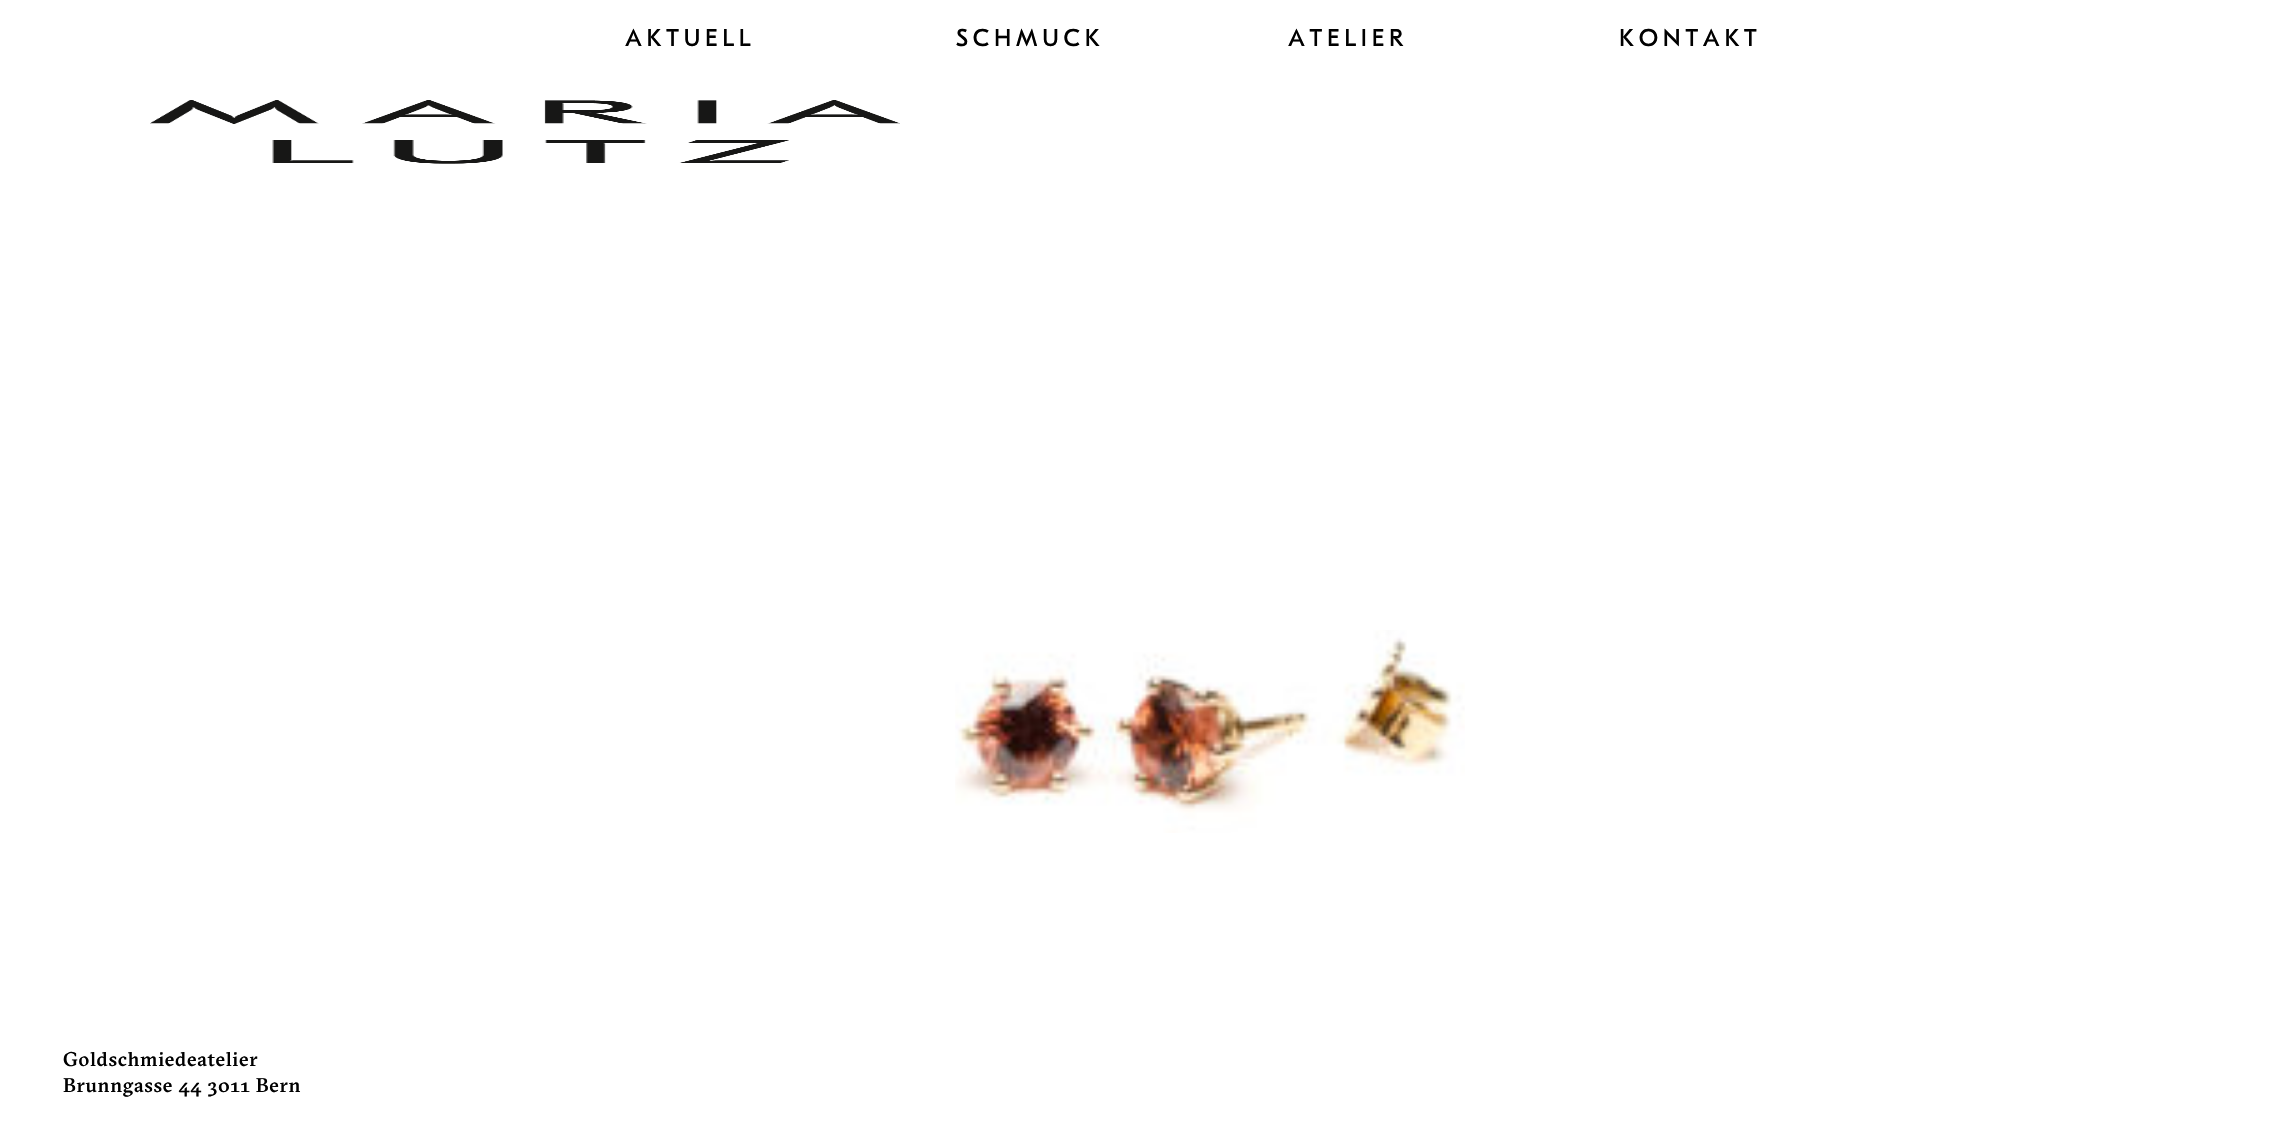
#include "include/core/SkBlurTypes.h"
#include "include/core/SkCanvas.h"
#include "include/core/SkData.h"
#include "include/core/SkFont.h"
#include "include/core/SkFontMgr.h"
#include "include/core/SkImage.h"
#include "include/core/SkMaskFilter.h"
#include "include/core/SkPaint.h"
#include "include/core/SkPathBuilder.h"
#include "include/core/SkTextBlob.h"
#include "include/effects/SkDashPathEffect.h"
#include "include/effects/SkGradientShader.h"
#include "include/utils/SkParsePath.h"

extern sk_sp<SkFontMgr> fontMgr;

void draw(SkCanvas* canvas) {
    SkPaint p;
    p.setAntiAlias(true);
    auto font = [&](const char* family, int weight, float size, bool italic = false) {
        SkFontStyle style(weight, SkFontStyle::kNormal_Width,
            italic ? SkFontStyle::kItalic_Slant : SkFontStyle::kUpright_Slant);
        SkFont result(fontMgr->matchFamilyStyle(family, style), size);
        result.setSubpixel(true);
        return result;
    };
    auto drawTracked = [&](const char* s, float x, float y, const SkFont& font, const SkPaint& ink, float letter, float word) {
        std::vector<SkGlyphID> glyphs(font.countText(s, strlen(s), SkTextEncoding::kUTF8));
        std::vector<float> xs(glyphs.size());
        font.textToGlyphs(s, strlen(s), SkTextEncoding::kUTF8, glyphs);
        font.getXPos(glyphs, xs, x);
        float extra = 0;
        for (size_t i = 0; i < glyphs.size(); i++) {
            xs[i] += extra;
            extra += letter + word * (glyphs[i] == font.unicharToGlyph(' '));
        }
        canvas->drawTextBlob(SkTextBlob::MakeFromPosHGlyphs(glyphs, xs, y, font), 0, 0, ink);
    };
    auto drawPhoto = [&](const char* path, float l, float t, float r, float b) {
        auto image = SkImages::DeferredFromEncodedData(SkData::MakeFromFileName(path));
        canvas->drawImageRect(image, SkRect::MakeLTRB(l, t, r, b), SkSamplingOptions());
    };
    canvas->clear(0xFFFFFFFF);
    auto font1 = font("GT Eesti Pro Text", 400, 24.25f);
    p.setColor(0xFF000000);
    {
        const struct { const char* s; float x, y; } items[] = {
            {"AKTUELL", 625, 46},
            {"SCHMUCK", 956, 46},
            {"ATELIER", 1288, 46},
            {"KONTAKT", 1619, 46},
        };
        for (auto [s, x, y] : items) {
            drawTracked(s, x, y, font1, p, 4.75f, 0);
        }
    }
    drawPhoto("media/1.png", 955, 630, 1465, 833);
    drawPhoto("media/2.png", 150, 100, 900, 164);
    auto font2 = font("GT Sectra", 500, 19.75f);
    drawTracked("Goldschmiedeatelier", 63, 1066, font2, p, 0.7f, 0);
    drawTracked("Brunngasse 44 3011 Bern", 63, 1092, font2, p, 0.7f, 0);
}
